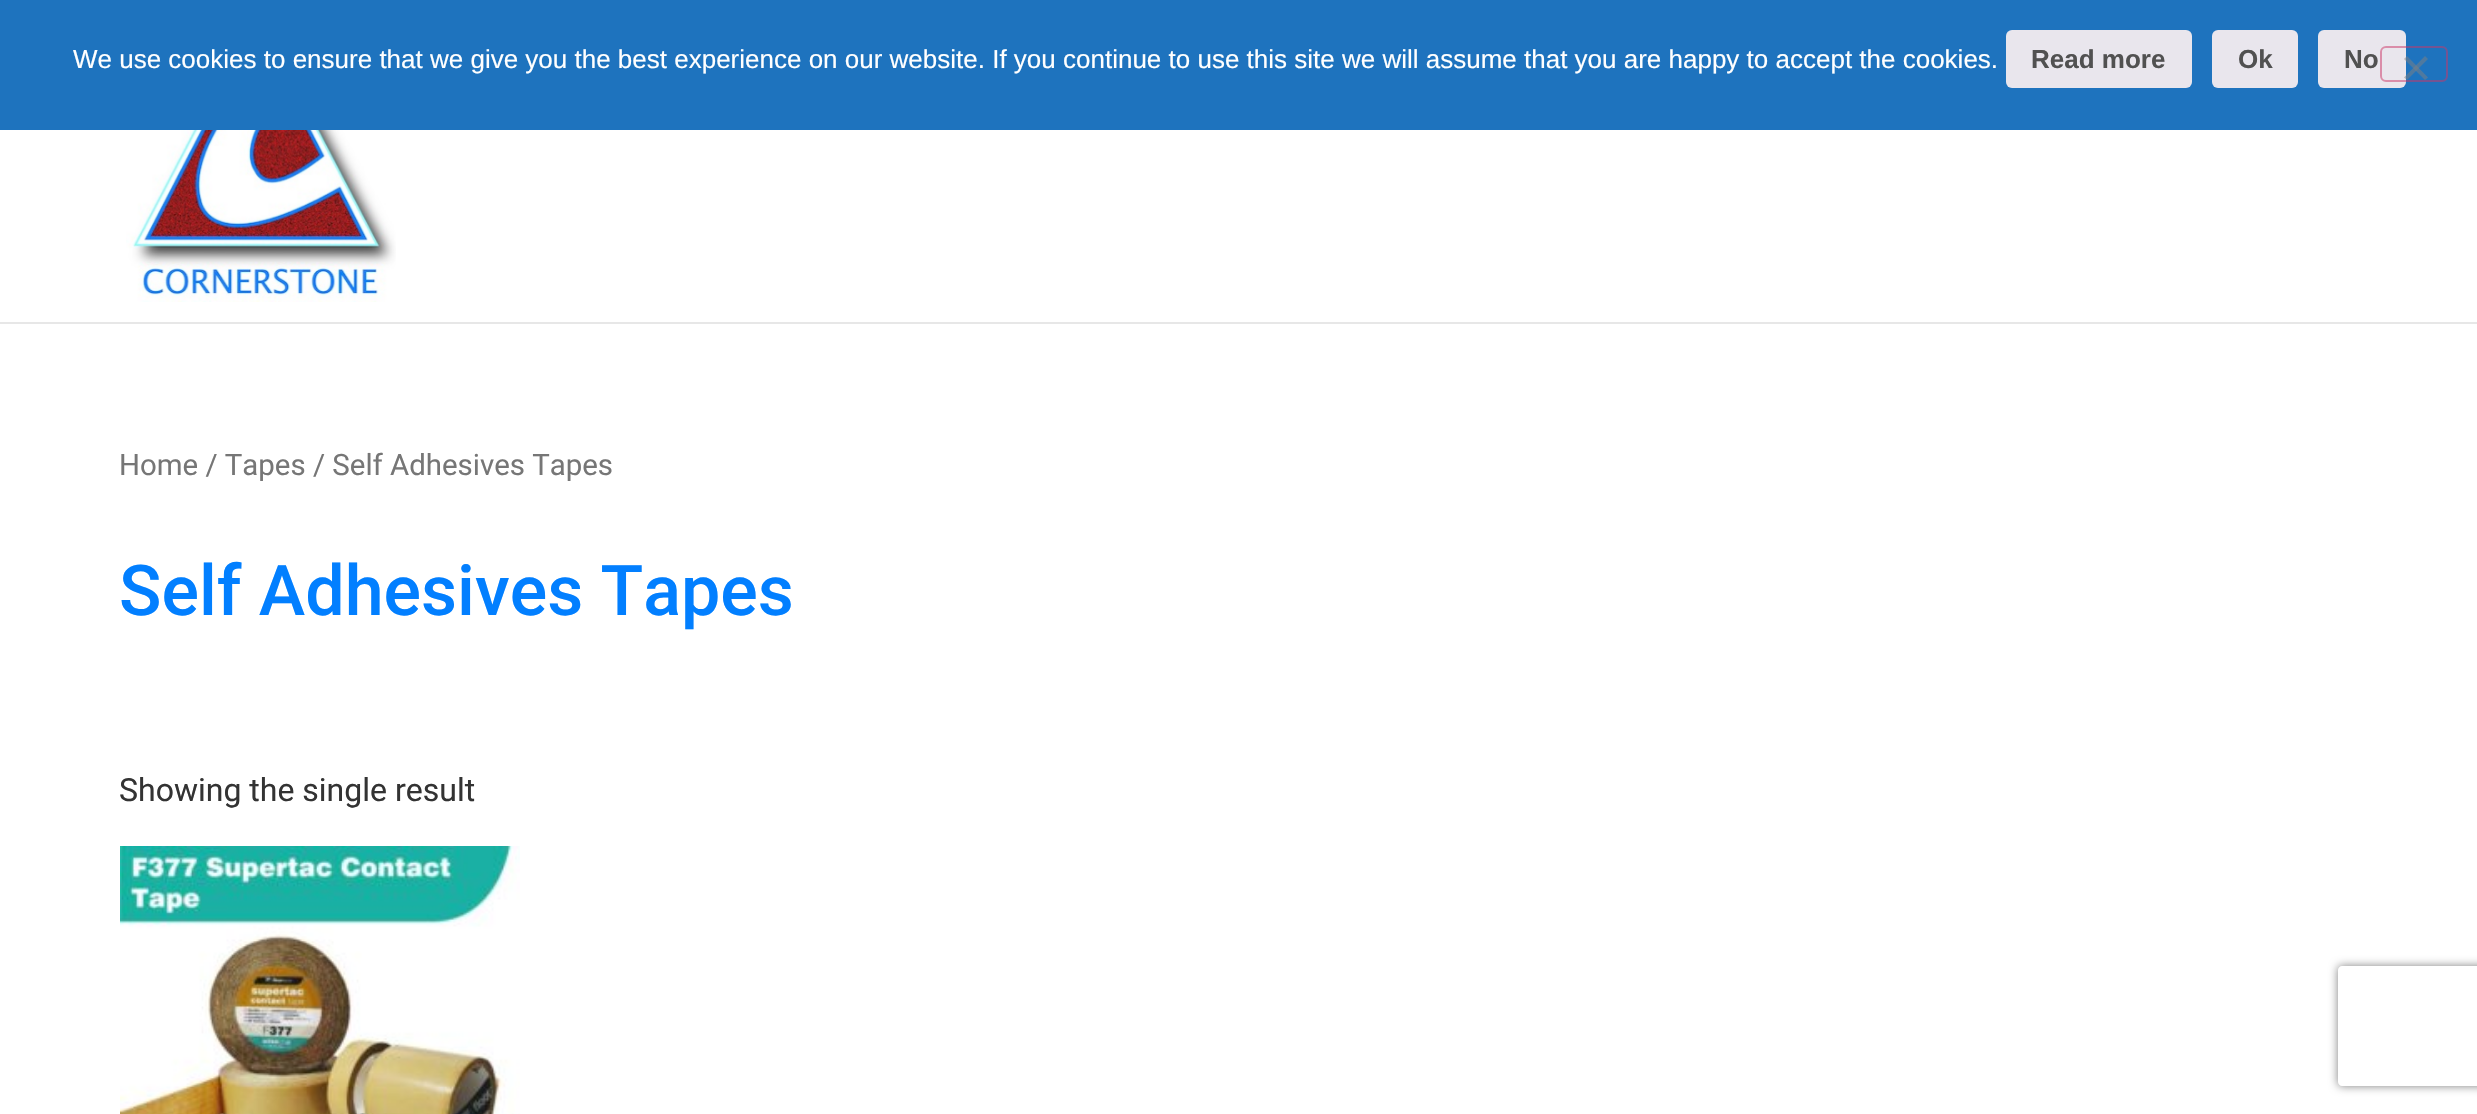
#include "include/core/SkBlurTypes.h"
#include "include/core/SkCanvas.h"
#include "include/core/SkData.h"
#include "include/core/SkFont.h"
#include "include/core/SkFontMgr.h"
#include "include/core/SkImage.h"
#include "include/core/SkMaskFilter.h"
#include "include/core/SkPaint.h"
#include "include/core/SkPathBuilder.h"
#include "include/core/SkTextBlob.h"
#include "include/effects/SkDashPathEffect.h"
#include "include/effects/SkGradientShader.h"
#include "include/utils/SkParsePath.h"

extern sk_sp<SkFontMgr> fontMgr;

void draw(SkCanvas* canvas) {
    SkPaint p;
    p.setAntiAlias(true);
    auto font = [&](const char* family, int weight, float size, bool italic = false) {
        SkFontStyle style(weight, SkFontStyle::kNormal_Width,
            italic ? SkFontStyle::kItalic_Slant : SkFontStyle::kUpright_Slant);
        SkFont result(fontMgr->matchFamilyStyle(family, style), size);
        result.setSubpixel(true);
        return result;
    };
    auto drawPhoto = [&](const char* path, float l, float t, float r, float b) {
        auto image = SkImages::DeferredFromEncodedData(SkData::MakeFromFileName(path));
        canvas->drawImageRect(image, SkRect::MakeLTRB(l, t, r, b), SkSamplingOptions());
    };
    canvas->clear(0xFFFFFFFF);
    p.setColor(0xFF1E73BE);
    canvas->drawRect(SkRect::MakeLTRB(0, 0, 2477, 130), p);
    auto font1 = font("Liberation Sans", 400, 26);
    p.setColor(0xFFFFFFFF);
    canvas->drawString("We use cookies to ensure that we give you the best experience on our website. If you continue to use this site we will assume that you are happy to accept the cookies.", 73, 68, font1, p);
    p.setColor(0xFFE9E6ED);
    canvas->drawRoundRect(SkRect::MakeLTRB(2006, 30, 2192, 88), 6, 6, p);
    auto font2 = font("Liberation Sans", 700, 26);
    p.setColor(0xFF515151);
    canvas->drawString("Read more", 2031, 68, font2, p);
    p.setColor(0xFFE9E6ED);
    canvas->drawRoundRect(SkRect::MakeLTRB(2212, 30, 2298, 88), 6, 6, p);
    p.setColor(0xFF515151);
    canvas->drawString("Ok", 2238, 68, font2, p);
    p.setColor(0xFFE9E6ED);
    canvas->drawRoundRect(SkRect::MakeLTRB(2318, 30, 2406, 88), 6, 6, p);
    p.setColor(0xFF515151);
    canvas->drawString("No", 2344, 68, font2, p);
    p.setStyle(SkPaint::kStroke_Style);
    p.setStrokeWidth(2);
    p.setColor(0x80CC3366);
    canvas->drawRoundRect(SkRect::MakeLTRB(2381, 47, 2447, 81), 5, 5, p);
    p.setStyle(SkPaint::kFill_Style);
    p.setColor(0x80808080);
    canvas->drawPath(SkPathBuilder().moveTo(2425, 56).lineTo(2428, 59).lineTo(2407, 80).lineTo(2404, 77.5f).close().detach(), p);
    canvas->drawPath(SkPathBuilder().moveTo(2404, 59).lineTo(2407, 56).lineTo(2428, 77.5f).lineTo(2425, 80).close().detach(), p);
    p.setColor(0xFFE7E7E7);
    canvas->drawRect(SkRect::MakeLTRB(0, 322, 2477, 324), p);
    drawPhoto("media/1.png", 126, 130, 396, 302);
    auto font3 = font("Roboto", 400, 29.4f);
    p.setColor(0xFF767676);
    canvas->drawString("Home / Tapes / Self Adhesives Tapes", 119, 475, font3, p);
    auto font4 = font("Roboto", 500, 70);
    p.setColor(0xFF027FFF);
    canvas->drawString("Self Adhesives Tapes", 119, 615, font4, p);
    auto font5 = font("Roboto", 400, 32);
    p.setColor(0xFF333333);
    canvas->drawString("Showing the single result", 119, 801, font5, p);
    drawPhoto("media/2.png", 120, 846, 520, 1114);
    canvas->save();
    canvas->clipPath(SkPathBuilder(SkPathFillType::kEvenOdd).moveTo(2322, 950).lineTo(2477, 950).lineTo(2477, 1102).lineTo(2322, 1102).close().moveTo(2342, 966).lineTo(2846, 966).cubicTo(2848, 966, 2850, 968, 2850, 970).lineTo(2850, 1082).cubicTo(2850, 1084, 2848, 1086, 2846, 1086).lineTo(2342, 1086).cubicTo(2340, 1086, 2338, 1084, 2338, 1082).lineTo(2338, 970).cubicTo(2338, 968, 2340, 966, 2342, 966).close().detach(), true);
    p.setColor(0xFF808080);
    p.setMaskFilter(SkMaskFilter::MakeBlur(kNormal_SkBlurStyle, 5));
    canvas->drawRoundRect(SkRect::MakeLTRB(2338, 966, 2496, 1086), 4, 4, p);
    p.setMaskFilter(nullptr);
    canvas->restore();
}
